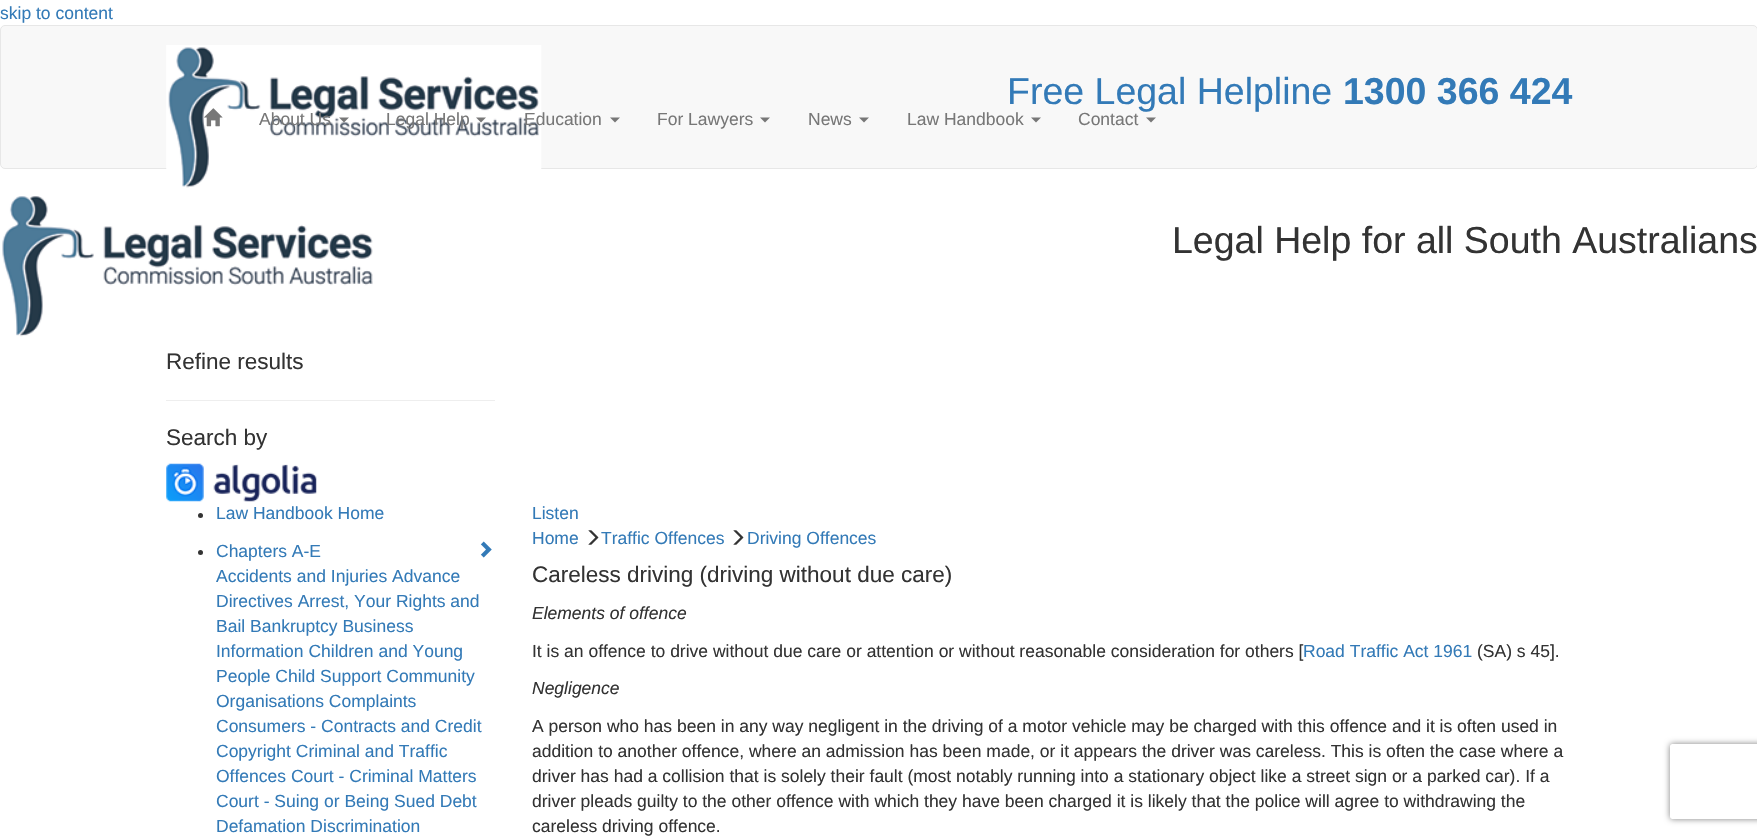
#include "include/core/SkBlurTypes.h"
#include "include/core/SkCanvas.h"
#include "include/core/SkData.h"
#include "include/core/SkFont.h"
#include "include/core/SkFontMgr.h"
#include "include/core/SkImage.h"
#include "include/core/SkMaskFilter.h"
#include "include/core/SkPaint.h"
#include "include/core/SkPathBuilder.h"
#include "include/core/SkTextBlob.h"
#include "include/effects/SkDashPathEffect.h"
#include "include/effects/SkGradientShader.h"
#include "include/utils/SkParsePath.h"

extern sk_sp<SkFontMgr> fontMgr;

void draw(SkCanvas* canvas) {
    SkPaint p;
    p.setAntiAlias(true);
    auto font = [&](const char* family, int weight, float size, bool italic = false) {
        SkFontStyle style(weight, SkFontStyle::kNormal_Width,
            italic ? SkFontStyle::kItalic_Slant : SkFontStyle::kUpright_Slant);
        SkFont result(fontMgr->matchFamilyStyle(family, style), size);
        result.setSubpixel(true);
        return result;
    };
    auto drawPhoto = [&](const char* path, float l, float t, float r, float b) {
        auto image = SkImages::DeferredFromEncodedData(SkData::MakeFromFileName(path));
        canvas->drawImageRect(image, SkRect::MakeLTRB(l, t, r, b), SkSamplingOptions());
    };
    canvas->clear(0xFFFFFFFF);
    auto font1 = font("Liberation Sans", 400, 17.5f);
    p.setColor(0xFF337AB7);
    canvas->drawString("skip to content", 0, 19, font1, p);
    p.setColor(0xFFF8F8F8);
    canvas->drawRoundRect(SkRect::MakeLTRB(0.5f, 25.5f, 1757.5f, 168.5f), 4.5f, 4.5f, p);
    p.setStyle(SkPaint::kStroke_Style);
    p.setStrokeWidth(1);
    p.setColor(0xFFE7E7E7);
    canvas->drawRoundRect(SkRect::MakeLTRB(0.5f, 25.5f, 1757.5f, 168.5f), 4.5f, 4.5f, p);
    drawPhoto("media/1.png", 166, 45, 542, 188);
    auto font2 = font("Liberation Sans", 400, 37.5f);
    p.setStyle(SkPaint::kFill_Style);
    p.setColor(0xFF337AB7);
    canvas->drawString("Free Legal Helpline", 1007, 104, font2, p);
    auto font3 = font("Liberation Sans", 700, 37.5f);
    canvas->drawString("1300 366 424", 1343, 104, font3, p);
    drawPhoto("media/2.png", 204, 108, 223, 127);
    p.setColor(0xFF777777);
    canvas->drawString("About Us", 259, 125, font1, p);
    canvas->drawPath(SkPathBuilder().moveTo(339, 117.5f).lineTo(349, 117.5f).lineTo(344, 122.5f).close().detach(), p);
    canvas->drawString("Legal Help", 386, 125, font1, p);
    canvas->drawPath(SkPathBuilder().moveTo(476, 117.5f).lineTo(486, 117.5f).lineTo(481, 122.5f).close().detach(), p);
    canvas->drawString("Education", 524, 125, font1, p);
    canvas->drawPath(SkPathBuilder().moveTo(610, 117.5f).lineTo(620, 117.5f).lineTo(615, 122.5f).close().detach(), p);
    canvas->drawString("For Lawyers", 657, 125, font1, p);
    canvas->drawPath(SkPathBuilder().moveTo(760, 117.5f).lineTo(770, 117.5f).lineTo(765, 122.5f).close().detach(), p);
    canvas->drawString("News", 808, 125, font1, p);
    canvas->drawPath(SkPathBuilder().moveTo(859, 117.5f).lineTo(869, 117.5f).lineTo(864, 122.5f).close().detach(), p);
    canvas->drawString("Law Handbook", 907, 125, font1, p);
    canvas->drawPath(SkPathBuilder().moveTo(1031, 117.5f).lineTo(1041, 117.5f).lineTo(1036, 122.5f).close().detach(), p);
    canvas->drawString("Contact", 1078, 125, font1, p);
    canvas->drawPath(SkPathBuilder().moveTo(1146, 117.5f).lineTo(1156, 117.5f).lineTo(1151, 122.5f).close().detach(), p);
    drawPhoto("media/3.png", 2, 196, 373, 337);
    p.setColor(0xFF333333);
    canvas->drawString("Legal Help for all South Australians", 1172, 253, font2, p);
    auto font4 = font("Liberation Sans", 400, 22.5f);
    canvas->drawString("Refine results", 166, 369, font4, p);
    p.setColor(0xFFEEEEEE);
    canvas->drawRect(SkRect::MakeLTRB(166, 400, 495, 401), p);
    p.setColor(0xFF333333);
    canvas->drawString("Search by", 166, 445, font4, p);
    drawPhoto("media/4.png", 166, 463, 317, 502);
    canvas->drawCircle(200.5f, 515.5f, 2.5f, p);
    p.setColor(0xFF337AB7);
    canvas->drawString("Law Handbook Home", 216, 519, font1, p);
    p.setColor(0xFF333333);
    canvas->drawCircle(200.5f, 552.5f, 2.5f, p);
    p.setColor(0xFF337AB7);
    canvas->drawString("Chapters A-E", 216, 557, font1, p);
    drawPhoto("media/5.png", 480, 541, 492, 558);
    {
        const struct { const char* s; float x, y; } items[] = {
            {"Accidents and Injuries Advance", 216, 582},
            {"Directives Arrest, Your Rights and", 216, 607},
            {"Bail Bankruptcy Business", 216, 632},
            {"Information Children and Young", 216, 657},
            {"People Child Support Community", 216, 682},
            {"Organisations Complaints", 216, 707},
            {"Consumers - Contracts and Credit", 216, 732},
            {"Copyright Criminal and Traffic", 216, 757},
            {"Offences Court - Criminal Matters", 216, 782},
            {"Court - Suing or Being Sued Debt", 216, 807},
            {"Defamation Discrimination", 216, 832},
            {"Listen", 532, 519},
            {"Home", 532, 544},
        };
        for (auto [s, x, y] : items) {
            canvas->drawString(s, x, y, font1, p);
        }
    }
    drawPhoto("media/6.png", 588, 530, 599, 545);
    canvas->drawString("Traffic Offences", 601, 544, font1, p);
    drawPhoto("media/6.png", 733, 530, 744, 545);
    canvas->drawString("Driving Offences", 747, 544, font1, p);
    p.setColor(0xFF333333);
    canvas->drawString("Careless driving (driving without due care)", 532, 582, font4, p);
    auto font5 = font("Liberation Sans", 400, 17.5f, true);
    canvas->drawString("Elements of offence", 532, 619, font5, p);
    canvas->drawString("It is an offence to drive without due care or attention or without reasonable consideration for others [", 532, 657, font1, p);
    p.setColor(0xFF337AB7);
    canvas->drawString("Road Traffic Act 1961", 1303, 657, font1, p);
    p.setColor(0xFF333333);
    canvas->drawString("(SA) s 45].", 1477, 657, font1, p);
    canvas->drawString("Negligence", 532, 694, font5, p);
    {
        const struct { const char* s; float x, y; } items[] = {
            {"A person who has been in any way negligent in the driving of a motor vehicle may be charged with this offence and it is often used in", 532, 732},
            {"addition to another offence, where an admission has been made, or it appears the driver was careless. This is often the case where a", 532, 757},
            {"driver has had a collision that is solely their fault (most notably running into a stationary object like a street sign or a parked car). If a", 532, 782},
            {"driver pleads guilty to the other offence with which they have been charged it is likely that the police will agree to withdrawing the", 532, 807},
            {"careless driving offence.", 532, 832},
        };
        for (auto [s, x, y] : items) {
            canvas->drawString(s, x, y, font1, p);
        }
    }
    canvas->save();
    canvas->clipPath(SkPathBuilder(SkPathFillType::kEvenOdd).moveTo(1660, 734).lineTo(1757, 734).lineTo(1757, 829).lineTo(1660, 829).close().moveTo(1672.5f, 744).lineTo(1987.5f, 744).cubicTo(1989, 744, 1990, 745, 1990, 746.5f).lineTo(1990, 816.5f).cubicTo(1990, 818, 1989, 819, 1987.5f, 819).lineTo(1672.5f, 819).cubicTo(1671, 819, 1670, 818, 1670, 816.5f).lineTo(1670, 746.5f).cubicTo(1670, 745, 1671, 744, 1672.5f, 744).close().detach(), true);
    p.setColor(0xFF808080);
    p.setMaskFilter(SkMaskFilter::MakeBlur(kNormal_SkBlurStyle, 3));
    canvas->drawRoundRect(SkRect::MakeLTRB(1670, 744, 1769, 819), 2.5f, 2.5f, p);
    p.setMaskFilter(nullptr);
    canvas->restore();
}
